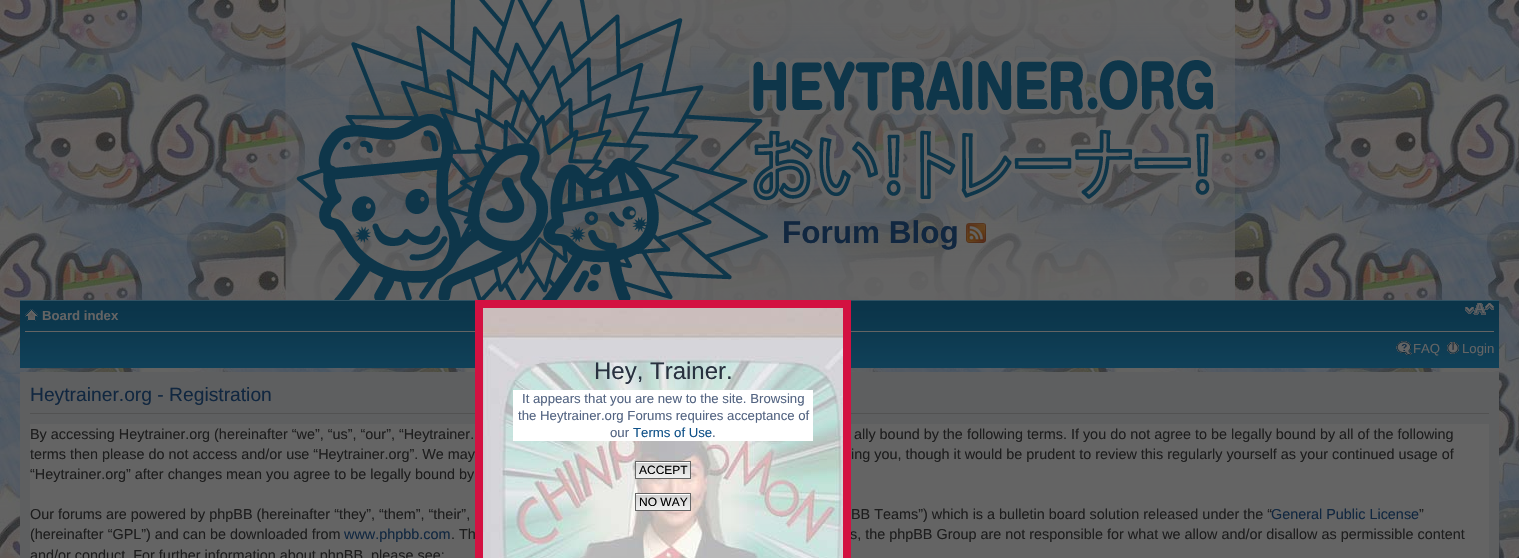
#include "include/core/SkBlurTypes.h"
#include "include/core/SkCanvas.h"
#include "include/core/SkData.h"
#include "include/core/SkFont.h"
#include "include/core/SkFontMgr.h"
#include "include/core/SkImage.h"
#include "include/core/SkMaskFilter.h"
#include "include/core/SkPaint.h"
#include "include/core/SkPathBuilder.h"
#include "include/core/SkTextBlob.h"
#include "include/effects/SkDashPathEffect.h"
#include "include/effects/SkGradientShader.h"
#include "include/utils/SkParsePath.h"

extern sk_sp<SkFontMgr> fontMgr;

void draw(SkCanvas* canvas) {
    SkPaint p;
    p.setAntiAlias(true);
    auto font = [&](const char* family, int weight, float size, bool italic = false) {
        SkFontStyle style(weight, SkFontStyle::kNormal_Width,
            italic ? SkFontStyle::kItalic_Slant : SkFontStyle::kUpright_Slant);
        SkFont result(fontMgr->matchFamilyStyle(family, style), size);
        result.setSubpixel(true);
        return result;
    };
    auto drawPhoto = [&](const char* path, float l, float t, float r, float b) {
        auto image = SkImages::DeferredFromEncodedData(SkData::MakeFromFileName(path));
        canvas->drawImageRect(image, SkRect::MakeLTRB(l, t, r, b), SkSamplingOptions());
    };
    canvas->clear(0xFFFFFFFF);
    drawPhoto("media/1.png", 0, 0, 1519, 558);
    drawPhoto("media/2.png", 285, 0, 1235, 300);
    auto font1 = font("Liberation Sans", 700, 31.5f);
    p.setColor(0xFF112740);
    canvas->drawString("Forum Blog", 782, 243, font1, p);
    drawPhoto("media/3.png", 966, 223, 986, 243);
    drawPhoto("media/4.png", 20, 300, 1499, 368);
    p.setColor(0xFF646464);
    canvas->drawRect(SkRect::MakeLTRB(25, 331, 1494, 332), p);
    drawPhoto("media/5.png", 25, 309, 38, 321);
    auto font2 = font("Liberation Sans", 700, 13.2f);
    canvas->drawString("Board index", 42, 320, font2, p);
    drawPhoto("media/6.png", 1465, 303, 1494, 315);
    drawPhoto("media/7.png", 1396, 341, 1412, 355);
    auto font3 = font("Liberation Sans", 400, 13.2f);
    canvas->drawString("FAQ", 1413, 353, font3, p);
    drawPhoto("media/8.png", 1447, 342, 1459, 354);
    canvas->drawString("Login", 1462, 353, font3, p);
    p.setColor(0xFF5E5F60);
    canvas->drawRect(SkRect::MakeLTRB(20, 372, 1499, 558), p);
    p.setColor(0xFF525252);
    canvas->drawRect(SkRect::MakeLTRB(30, 413, 1489, 414), p);
    auto font4 = font("Liberation Sans", 400, 19.25f);
    p.setColor(0xFF112740);
    canvas->drawString("Heytrainer.org - Registration", 30, 401, font4, p);
    p.setColor(0xFF646464);
    canvas->drawRect(SkRect::MakeLTRB(30, 424, 1489, 558), p);
    auto font5 = font("Liberation Sans", 400, 14.4f);
    p.setColor(0xFF1D1D1D);
    {
        const struct { const char* s; float x, y; } items[] = {
            {"By accessing Heytrainer.org (hereinafter “we”, “us”, “our”, “Heytrainer.", 30, 439},
            {"ally bound by the following terms. If you do not agree to be legally bound by all of the following", 854, 439},
            {"terms then please do not access and/or use “Heytrainer.org”. We may", 30, 459},
            {"ing you, though it would be prudent to review this regularly yourself as your continued usage of", 851, 459},
            {"“Heytrainer.org” after changes mean you agree to be legally bound by", 30, 479},
            {"Our forums are powered by phpBB (hereinafter “they”, “them”, “their”,", 30, 519},
            {"BB Teams”) which is a bulletin board solution released under the “", 851, 519},
        };
        for (auto [s, x, y] : items) {
            canvas->drawString(s, x, y, font5, p);
        }
    }
    p.setColor(0xFF112740);
    canvas->drawString("General Public License", 1271, 519, font5, p);
    p.setColor(0xFF1D1D1D);
    canvas->drawString("”", 1419, 519, font5, p);
    canvas->drawString("(hereinafter “GPL”) and can be downloaded from", 30, 539, font5, p);
    p.setColor(0xFF112740);
    canvas->drawString("www.phpbb.com", 344, 539, font5, p);
    p.setColor(0xFF1D1D1D);
    {
        const struct { const char* s; float x, y; } items[] = {
            {". Th", 451, 539},
            {"s, the phpBB Group are not responsible for what we allow and/or disallow as permissible content", 850, 539},
            {"and/or conduct. For further information about phpBB, please see:", 30, 560},
        };
        for (auto [s, x, y] : items) {
            canvas->drawString(s, x, y, font5, p);
        }
    }
    drawPhoto("media/9.png", 483, 308, 843, 558);
    p.setStyle(SkPaint::kStroke_Style);
    p.setStrokeWidth(8);
    p.setColor(0xFFD31141);
    canvas->drawRect(SkRect::MakeLTRB(479, 304, 847, 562), p);
    auto font6 = font("Liberation Sans", 400, 24);
    p.setStyle(SkPaint::kFill_Style);
    p.setColor(0xFF28313F);
    canvas->drawString("Hey, Trainer.", 594, 379, font6, p);
    p.setColor(0xFFFFFFFF);
    canvas->drawRect(SkRect::MakeLTRB(513, 390, 813, 441), p);
    p.setColor(0xFF536482);
    {
        const struct { const char* s; float x, y; } items[] = {
            {"It appears that you are new to the site. Browsing", 522, 403},
            {"the Heytrainer.org Forums requires acceptance of", 518, 420},
            {"our", 610, 437},
        };
        for (auto [s, x, y] : items) {
            canvas->drawString(s, x, y, font3, p);
        }
    }
    p.setColor(0xFF105289);
    canvas->drawString("Terms of Use", 633, 437, font3, p);
    p.setColor(0xFF536482);
    canvas->drawString(".", 712, 437, font3, p);
    drawPhoto("media/10.png", 636, 462, 690, 478);
    p.setStyle(SkPaint::kStroke_Style);
    p.setStrokeWidth(1);
    p.setColor(0xFF666666);
    canvas->drawRect(SkRect::MakeLTRB(635.5f, 461.5f, 690.5f, 478.5f), p);
    auto font7 = font("Liberation Sans", 400, 12);
    p.setStyle(SkPaint::kFill_Style);
    p.setColor(0xFF000000);
    canvas->drawString("ACCEPT", 639, 474, font7, p);
    drawPhoto("media/10.png", 636, 494, 690, 510);
    p.setStyle(SkPaint::kStroke_Style);
    p.setColor(0xFF666666);
    canvas->drawRect(SkRect::MakeLTRB(635.5f, 493.5f, 690.5f, 510.5f), p);
    p.setStyle(SkPaint::kFill_Style);
    p.setColor(0xFF000000);
    canvas->drawString("NO WAY", 639, 506, font7, p);
}
